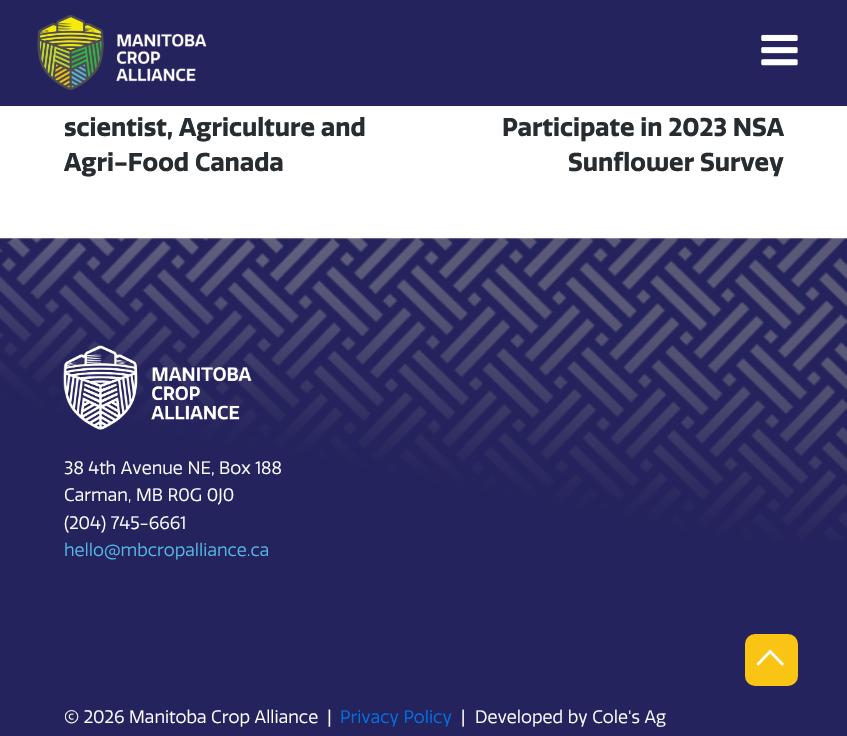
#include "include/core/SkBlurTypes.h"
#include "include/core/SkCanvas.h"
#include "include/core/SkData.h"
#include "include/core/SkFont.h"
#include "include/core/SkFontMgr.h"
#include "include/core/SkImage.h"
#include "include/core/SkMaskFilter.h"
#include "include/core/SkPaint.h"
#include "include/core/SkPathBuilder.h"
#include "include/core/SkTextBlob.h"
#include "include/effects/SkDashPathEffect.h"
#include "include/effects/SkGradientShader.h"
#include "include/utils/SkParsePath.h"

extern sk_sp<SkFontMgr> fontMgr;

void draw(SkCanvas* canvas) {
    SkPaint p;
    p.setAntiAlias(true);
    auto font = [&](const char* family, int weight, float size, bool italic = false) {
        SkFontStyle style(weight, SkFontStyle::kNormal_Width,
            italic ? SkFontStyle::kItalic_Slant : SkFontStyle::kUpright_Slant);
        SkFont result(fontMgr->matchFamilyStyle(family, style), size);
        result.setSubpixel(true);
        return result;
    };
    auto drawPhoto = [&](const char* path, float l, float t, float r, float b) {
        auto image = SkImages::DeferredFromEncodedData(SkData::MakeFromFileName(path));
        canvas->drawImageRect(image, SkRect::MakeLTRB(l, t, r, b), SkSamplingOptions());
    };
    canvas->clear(0xFFFFFFFF);
    p.setColor(0xFF25235D);
    canvas->drawRect(SkRect::MakeLTRB(0, 0, 847, 106), p);
    drawPhoto("media/1.png", 37, 15, 207, 90);
    drawPhoto("media/2.png", 761, 34, 798, 66);
    auto font1 = font("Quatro", 700, 25);
    p.setColor(0xFF272C30);
    {
        const struct { const char* s; float x, y; } items[] = {
            {"scientist, Agriculture and", 64, 136},
            {"Agri-Food Canada", 64, 171},
            {"Participate in 2023 NSA", 502, 136},
            {"Sunflower Survey", 568, 171},
        };
        for (auto [s, x, y] : items) {
            canvas->drawString(s, x, y, font1, p);
        }
    }
    p.setColor(0xFF25235D);
    canvas->drawRect(SkRect::MakeLTRB(0, 540, 847, 736), p);
    drawPhoto("media/3.png", 0, 238, 847, 540);
    drawPhoto("media/4.png", 63, 345, 252, 430);
    auto font2 = font("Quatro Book", 400, 17.5f);
    p.setColor(0xFFFFFFFF);
    {
        const struct { const char* s; float x, y; } items[] = {
            {"38 4th Avenue NE, Box 188", 64, 474},
            {"Carman, MB R0G 0J0", 64, 501},
            {"(204) 745-6661", 64, 529},
        };
        for (auto [s, x, y] : items) {
            canvas->drawString(s, x, y, font2, p);
        }
    }
    p.setColor(0xFF57B7E7);
    canvas->drawString("hello@mbcropalliance.ca", 64, 556, font2, p);
    p.setColor(0xFFFFFFFF);
    canvas->drawString("© 2026 Manitoba Crop Alliance  |", 64, 723, font2, p);
    p.setColor(0xFF0072E5);
    canvas->drawString("Privacy Policy", 340, 723, font2, p);
    p.setColor(0xFFFFFFFF);
    canvas->drawString("|", 461, 723, font2, p);
    canvas->drawString("Developed by Cole's Ag", 475, 723, font2, p);
    p.setColor(0xFFFAC414);
    canvas->drawRoundRect(SkRect::MakeLTRB(745, 634, 798, 686), 10, 10, p);
    drawPhoto("media/5.png", 756, 649, 785, 666);
}
